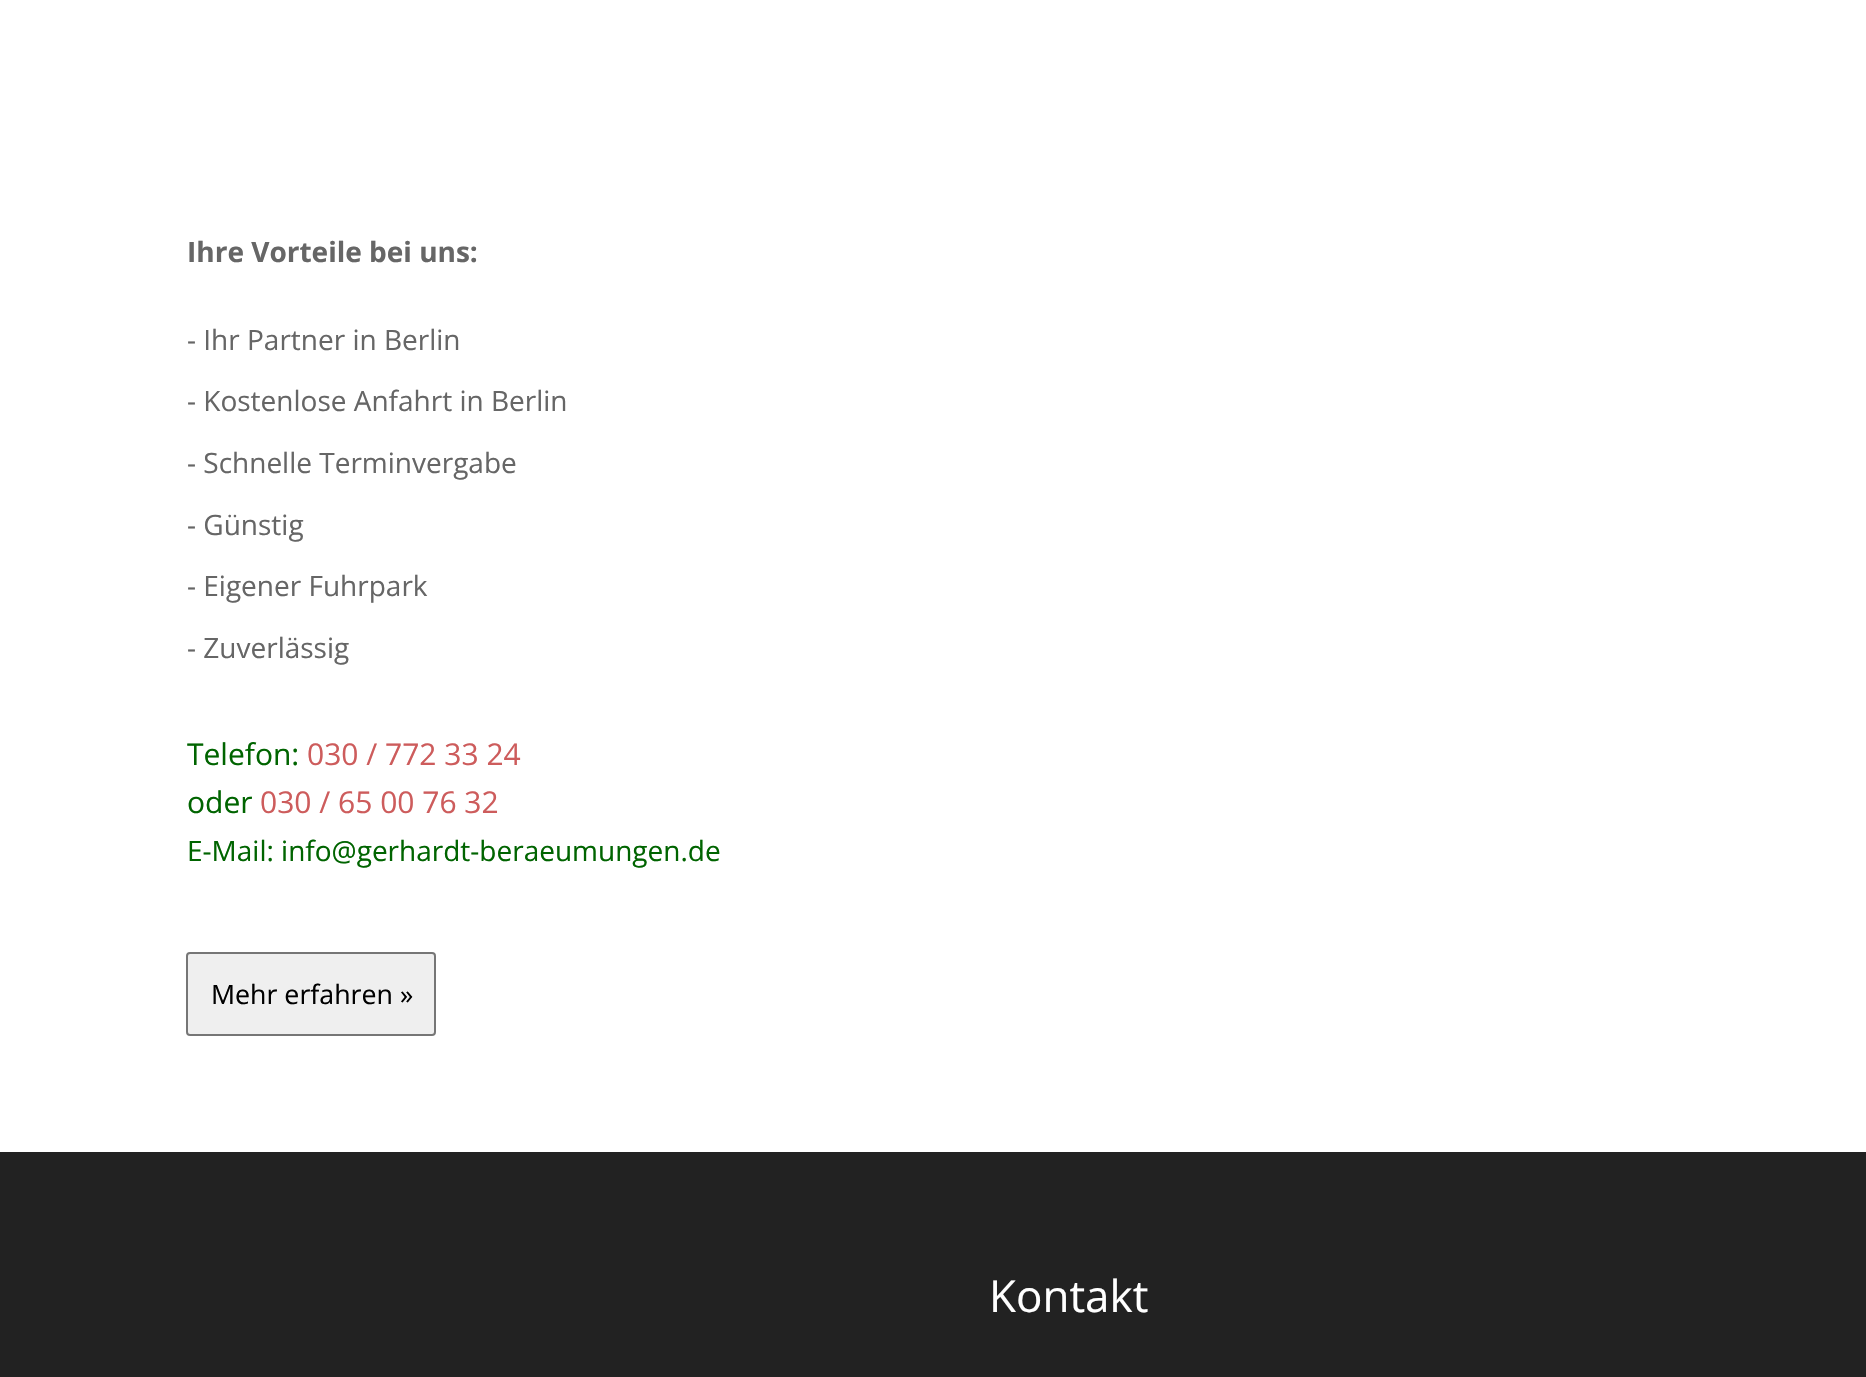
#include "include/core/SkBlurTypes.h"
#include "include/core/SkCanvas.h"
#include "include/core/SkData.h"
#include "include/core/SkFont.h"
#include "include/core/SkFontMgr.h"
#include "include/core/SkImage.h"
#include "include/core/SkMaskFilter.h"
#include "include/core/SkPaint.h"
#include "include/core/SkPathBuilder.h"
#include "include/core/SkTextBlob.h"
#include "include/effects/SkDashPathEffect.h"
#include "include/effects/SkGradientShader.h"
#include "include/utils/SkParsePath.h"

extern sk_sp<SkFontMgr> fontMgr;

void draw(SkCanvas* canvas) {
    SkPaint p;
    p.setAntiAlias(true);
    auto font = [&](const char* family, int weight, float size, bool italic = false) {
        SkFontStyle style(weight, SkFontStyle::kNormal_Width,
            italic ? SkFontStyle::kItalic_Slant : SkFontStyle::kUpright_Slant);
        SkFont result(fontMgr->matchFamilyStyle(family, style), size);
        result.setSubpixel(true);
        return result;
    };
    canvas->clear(0xFFFFFFFF);
    auto font1 = font("Open Sans", 700, 28);
    p.setColor(0xFF666666);
    canvas->drawString("Ihre Vorteile bei uns:", 187, 262, font1, p);
    auto font2 = font("Open Sans", 400, 28);
    {
        const struct { const char* s; float x, y; } items[] = {
            {"- Ihr Partner in Berlin", 187, 350},
            {"- Kostenlose Anfahrt in Berlin", 187, 411},
            {"- Schnelle Terminvergabe", 187, 473},
            {"- Günstig", 187, 535},
            {"- Eigener Fuhrpark", 187, 596},
            {"- Zuverlässig", 187, 658},
        };
        for (auto [s, x, y] : items) {
            canvas->drawString(s, x, y, font2, p);
        }
    }
    auto font3 = font("Open Sans", 400, 30);
    p.setColor(0xFF006400);
    canvas->drawString("Telefon:", 187, 765, font3, p);
    p.setColor(0xFFCD5C5C);
    canvas->drawString("030 / 772 33 24", 307, 765, font3, p);
    p.setColor(0xFF006400);
    canvas->drawString("oder", 187, 813, font3, p);
    p.setColor(0xFFCD5C5C);
    canvas->drawString("030 / 65 00 76 32", 260, 813, font3, p);
    p.setColor(0xFF006400);
    canvas->drawString("E-Mail: info@gerhardt-beraeumungen.de", 187, 861, font2, p);
    p.setColor(0xFFEFEFEF);
    canvas->drawRoundRect(SkRect::MakeLTRB(187, 953, 435, 1035), 3, 3, p);
    p.setStyle(SkPaint::kStroke_Style);
    p.setStrokeWidth(2);
    p.setColor(0xFF767676);
    canvas->drawRoundRect(SkRect::MakeLTRB(187, 953, 435, 1035), 3, 3, p);
    auto font4 = font("Open Sans", 400, 26.75f);
    p.setStyle(SkPaint::kFill_Style);
    p.setColor(0xFF000000);
    canvas->drawString("Mehr erfahren »", 211, 1004, font4, p);
    p.setColor(0xFF222222);
    canvas->drawRect(SkRect::MakeLTRB(0, 1152, 1866, 1377), p);
    auto font5 = font("Open Sans", 400, 44);
    p.setColor(0xFFFFFFFF);
    canvas->drawString("Kontakt", 989, 1312, font5, p);
}
